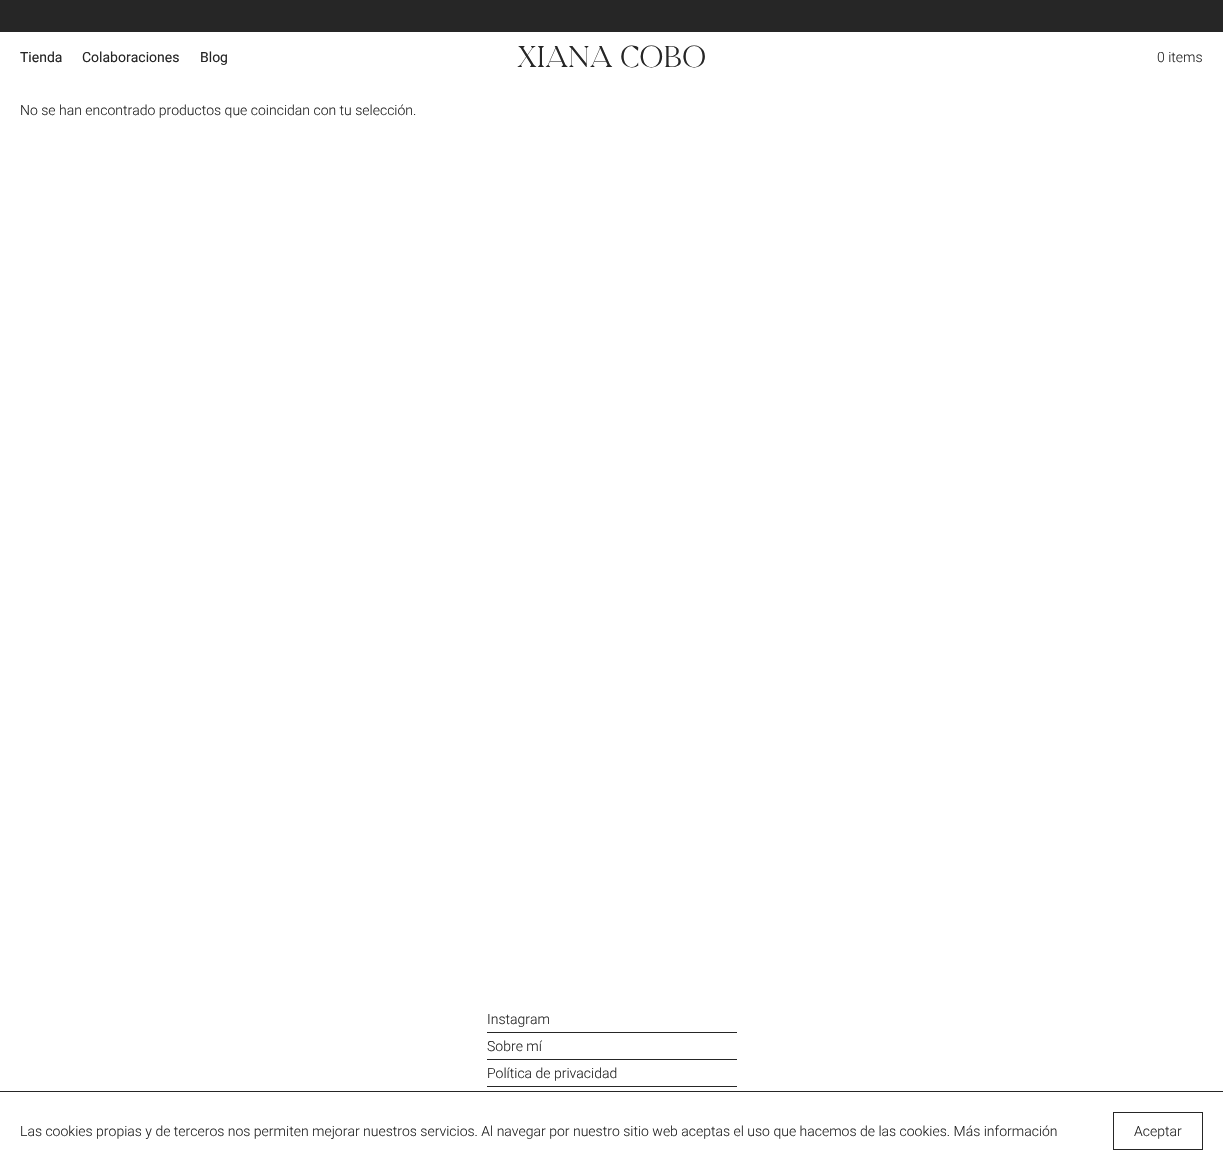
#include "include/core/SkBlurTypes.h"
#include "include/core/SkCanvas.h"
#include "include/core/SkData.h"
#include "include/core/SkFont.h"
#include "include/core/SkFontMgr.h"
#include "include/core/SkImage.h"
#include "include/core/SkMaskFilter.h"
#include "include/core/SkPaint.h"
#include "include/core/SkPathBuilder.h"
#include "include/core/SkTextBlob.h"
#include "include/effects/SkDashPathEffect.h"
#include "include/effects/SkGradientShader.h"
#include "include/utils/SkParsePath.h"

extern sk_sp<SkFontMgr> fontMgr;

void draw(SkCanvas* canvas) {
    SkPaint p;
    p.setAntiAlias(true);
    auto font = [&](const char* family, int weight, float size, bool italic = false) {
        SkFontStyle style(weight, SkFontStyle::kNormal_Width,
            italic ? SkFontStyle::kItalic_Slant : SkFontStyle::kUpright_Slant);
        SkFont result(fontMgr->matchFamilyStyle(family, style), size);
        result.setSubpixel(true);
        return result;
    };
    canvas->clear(0xFFFFFFFF);
    p.setColor(0xFF262626);
    canvas->drawRect(SkRect::MakeLTRB(0, 0, 1223, 32), p);
    auto font1 = font("Roboto", 400, 14);
    {
        const struct { const char* s; float x, y; } items[] = {
            {"Tienda", 20, 62},
            {"Colaboraciones", 82, 62},
            {"Blog", 200, 62},
        };
        for (auto [s, x, y] : items) {
            canvas->drawString(s, x, y, font1, p);
        }
    }
    auto font2 = font("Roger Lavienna", 400, 30);
    canvas->drawString("Xiana Cobo", 517, 67, font2, p);
    auto font3 = font("Roboto", 300, 14);
    canvas->drawString("0 items", 1157, 62, font3, p);
    canvas->drawString("No se han encontrado productos que coincidan con tu selección.", 20, 115, font3, p);
    canvas->drawRect(SkRect::MakeLTRB(487, 1032, 737, 1033), p);
    canvas->drawString("Instagram", 487, 1024, font3, p);
    canvas->drawRect(SkRect::MakeLTRB(487, 1059, 737, 1060), p);
    canvas->drawString("Sobre mí", 487, 1051, font3, p);
    canvas->drawRect(SkRect::MakeLTRB(487, 1086, 737, 1087), p);
    canvas->drawString("Política de privacidad", 487, 1078, font3, p);
    canvas->drawRect(SkRect::MakeLTRB(0, 1091, 1223, 1092), p);
    canvas->drawString("Las cookies propias y de terceros nos permiten mejorar nuestros servicios. Al navegar por nuestro sitio web aceptas el uso que hacemos de las cookies. Más información", 20, 1136, font3, p);
    p.setStyle(SkPaint::kStroke_Style);
    p.setStrokeWidth(1);
    canvas->drawRect(SkRect::MakeLTRB(1113.5f, 1112.5f, 1202.5f, 1149.5f), p);
    p.setStyle(SkPaint::kFill_Style);
    canvas->drawString("Aceptar", 1134, 1136, font3, p);
}
